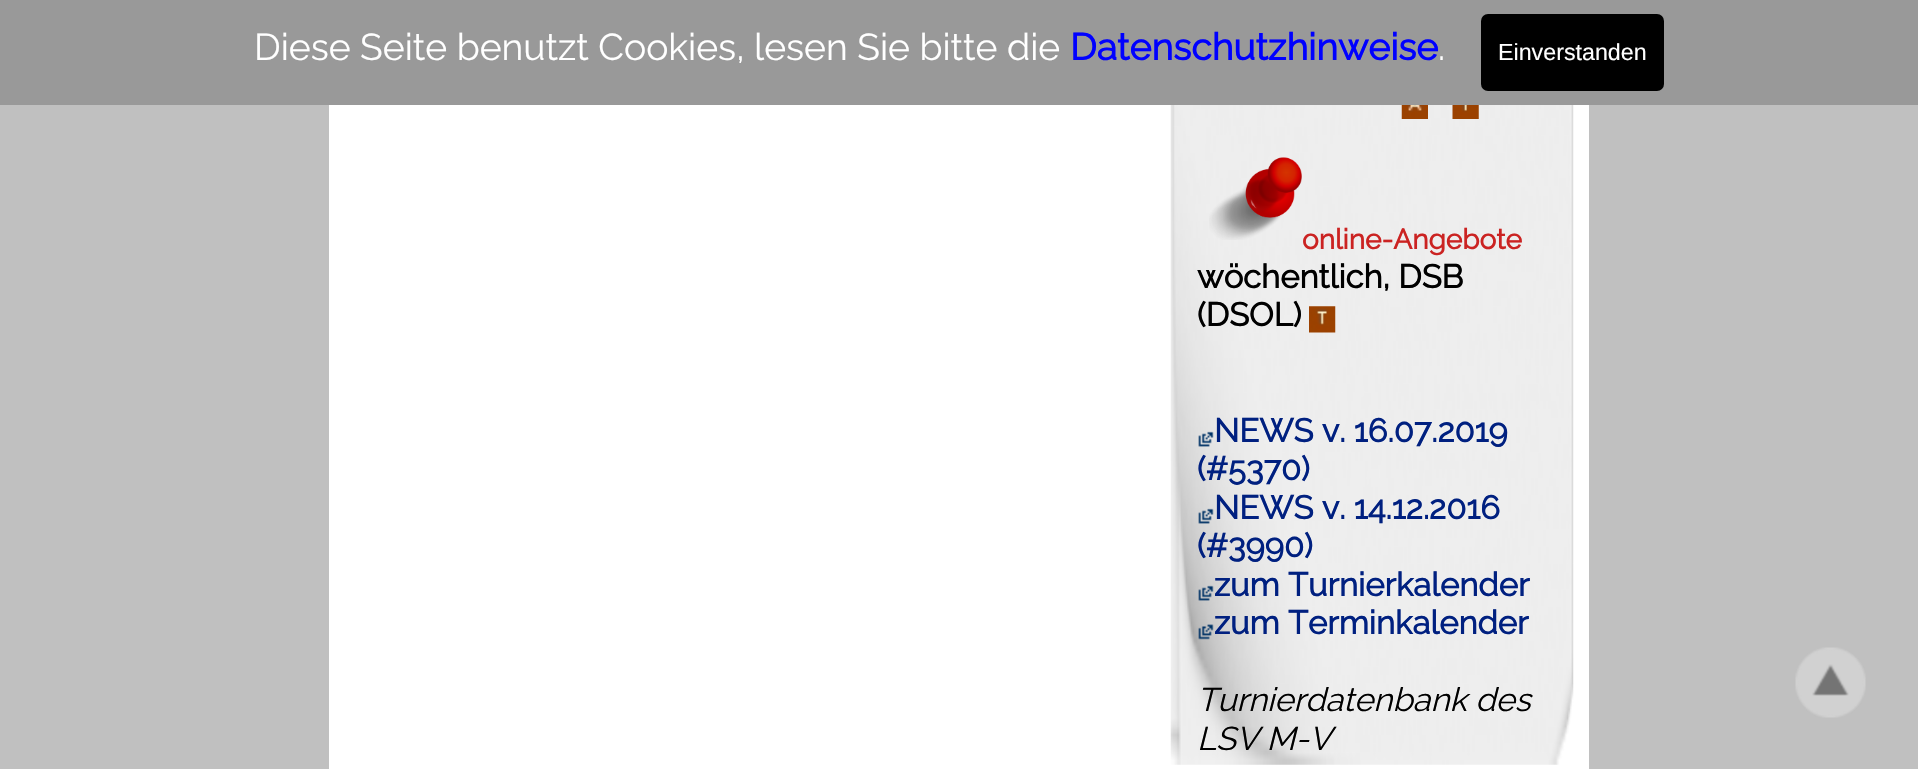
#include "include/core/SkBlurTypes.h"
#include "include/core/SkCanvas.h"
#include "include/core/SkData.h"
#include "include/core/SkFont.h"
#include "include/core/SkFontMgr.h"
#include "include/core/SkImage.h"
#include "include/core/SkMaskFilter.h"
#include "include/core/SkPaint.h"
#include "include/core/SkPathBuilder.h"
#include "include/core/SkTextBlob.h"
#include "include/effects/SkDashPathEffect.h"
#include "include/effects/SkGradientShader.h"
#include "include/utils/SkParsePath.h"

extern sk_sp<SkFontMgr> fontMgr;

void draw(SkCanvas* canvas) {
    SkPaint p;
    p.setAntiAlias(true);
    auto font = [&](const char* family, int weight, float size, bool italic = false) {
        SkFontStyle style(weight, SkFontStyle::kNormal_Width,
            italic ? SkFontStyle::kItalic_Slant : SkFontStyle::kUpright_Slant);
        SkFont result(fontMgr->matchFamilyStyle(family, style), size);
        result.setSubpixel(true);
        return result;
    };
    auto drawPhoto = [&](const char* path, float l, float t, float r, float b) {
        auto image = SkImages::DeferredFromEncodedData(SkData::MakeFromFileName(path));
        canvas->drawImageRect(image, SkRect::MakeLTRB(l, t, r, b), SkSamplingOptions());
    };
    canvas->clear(0xFFC0C0C0);
    p.setColor(0xFF999999);
    canvas->drawRect(SkRect::MakeLTRB(0, 0, 1918, 105), p);
    auto font1 = font("Raleway", 100, 37.3f);
    p.setColor(0xFFFFFFFF);
    canvas->drawString("Diese Seite benutzt Cookies, lesen Sie bitte die", 254, 60, font1, p);
    auto font2 = font("Raleway", 700, 37.3f);
    p.setColor(0xFF0000FF);
    canvas->drawString("Datenschutzhinweise", 1070, 60, font2, p);
    p.setColor(0xFFFFFFFF);
    canvas->drawString(".", 1438, 60, font1, p);
    p.setColor(0xFF000000);
    canvas->drawRoundRect(SkRect::MakeLTRB(1481, 14, 1664, 91), 7, 7, p);
    auto font3 = font("Liberation Sans", 400, 23.25f);
    p.setColor(0xFFFFFFFF);
    canvas->drawString("Einverstanden", 1498, 60, font3, p);
    canvas->drawRect(SkRect::MakeLTRB(329, 105, 1589, 769), p);
    drawPhoto("media/1.png", 1170, 105, 1574, 765);
    drawPhoto("media/2.png", 1401, 105, 1428, 119);
    drawPhoto("media/3.png", 1452, 105, 1479, 119);
    drawPhoto("media/4.png", 1209, 157, 1302, 240);
    auto font4 = font("Raleway", 700, 28);
    p.setColor(0xFFCB2322);
    canvas->drawString("online-Angebote", 1302, 249, font4, p);
    auto font5 = font("Raleway", 700, 32.75f);
    p.setColor(0xFF000000);
    canvas->drawString("wöchentlich, DSB", 1197, 288, font5, p);
    canvas->drawString("(DSOL)", 1197, 326, font5, p);
    drawPhoto("media/5.png", 1309, 306, 1336, 333);
    drawPhoto("media/6.png", 1198, 431, 1214, 447);
    p.setColor(0xFF002080);
    canvas->drawString("NEWS v. 16.07.2019", 1214, 442, font5, p);
    canvas->drawString("(#5370)", 1197, 480, font5, p);
    drawPhoto("media/7.png", 1198, 508, 1214, 524);
    canvas->drawString("NEWS v. 14.12.2016", 1214, 519, font5, p);
    canvas->drawString("(#3990)", 1197, 557, font5, p);
    drawPhoto("media/8.png", 1198, 585, 1214, 601);
    canvas->drawString("zum Turnierkalender", 1214, 596, font5, p);
    drawPhoto("media/9.png", 1198, 624, 1214, 640);
    canvas->drawString("zum Terminkalender", 1214, 634, font5, p);
    auto font6 = font("Raleway", 100, 32.75f, true);
    p.setColor(0xFF000000);
    canvas->drawString("Turnierdatenbank des", 1197, 711, font6, p);
    canvas->drawString("LSV M-V", 1197, 750, font6, p);
    drawPhoto("media/10.png", 1795, 647, 1866, 718);
}
